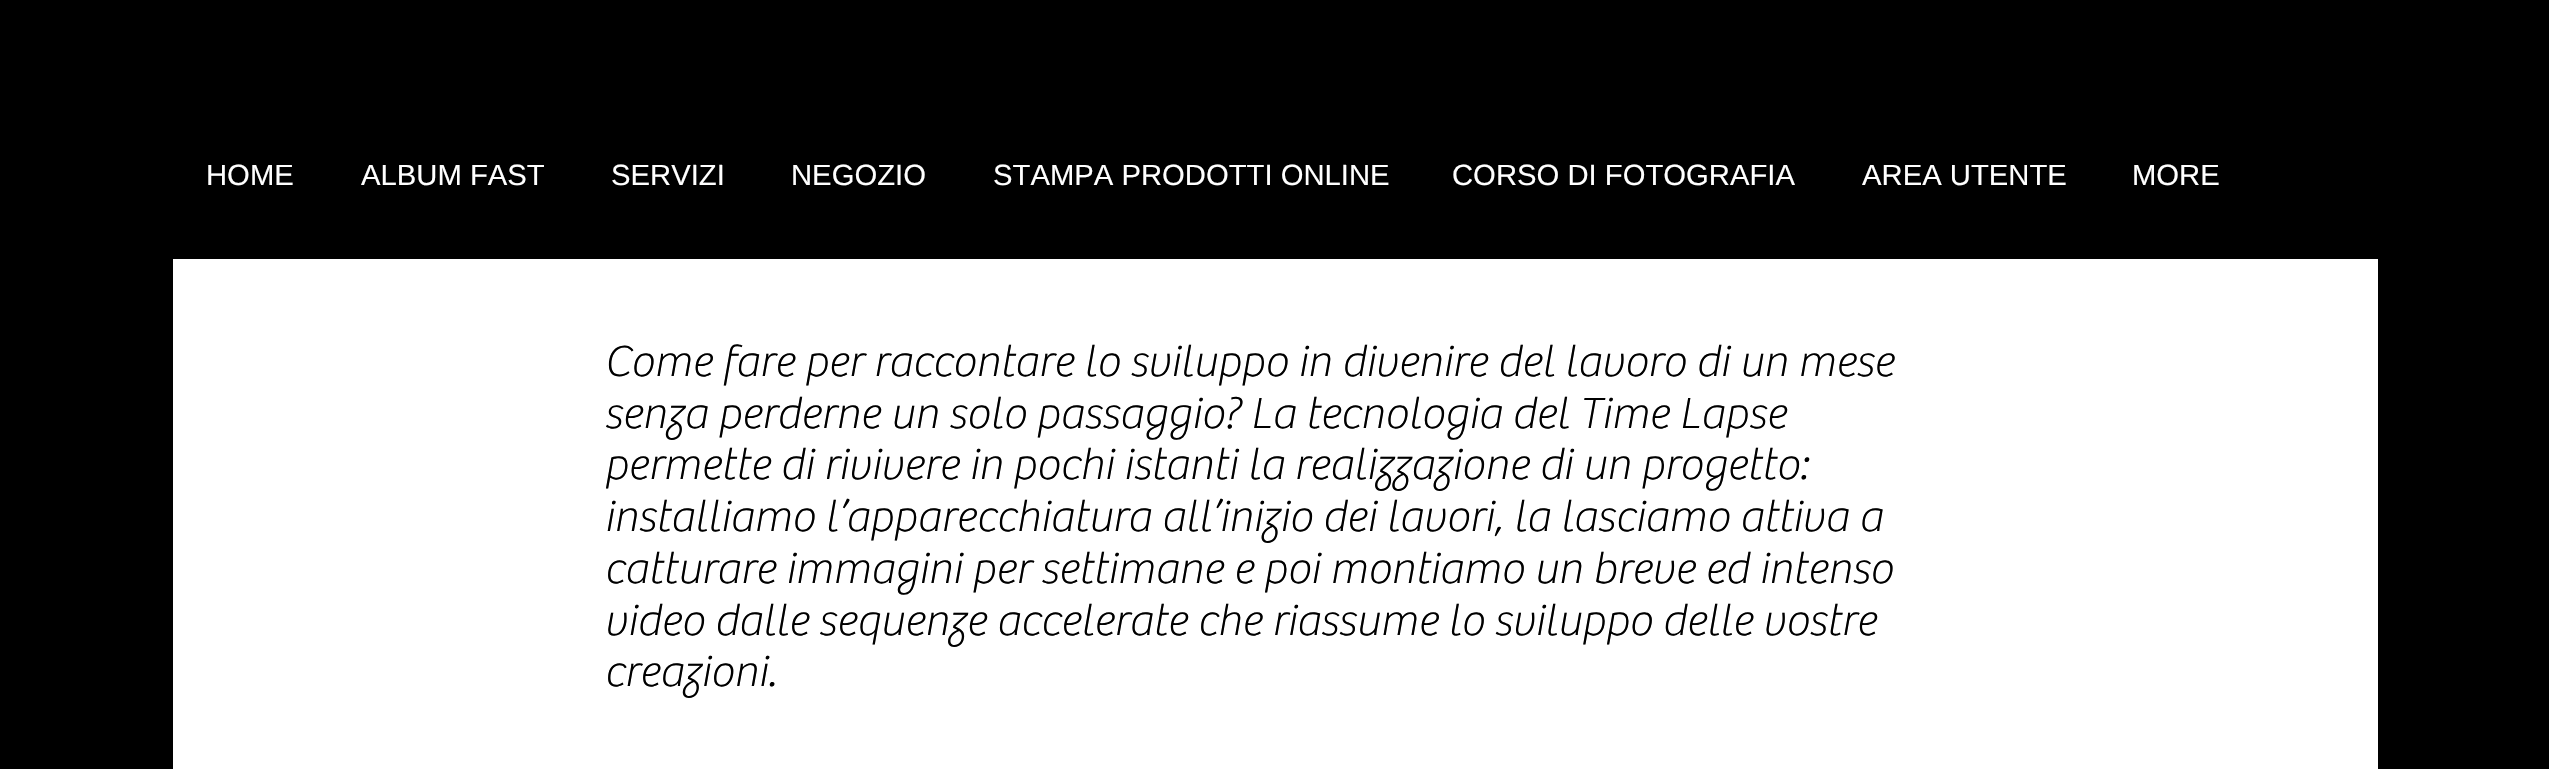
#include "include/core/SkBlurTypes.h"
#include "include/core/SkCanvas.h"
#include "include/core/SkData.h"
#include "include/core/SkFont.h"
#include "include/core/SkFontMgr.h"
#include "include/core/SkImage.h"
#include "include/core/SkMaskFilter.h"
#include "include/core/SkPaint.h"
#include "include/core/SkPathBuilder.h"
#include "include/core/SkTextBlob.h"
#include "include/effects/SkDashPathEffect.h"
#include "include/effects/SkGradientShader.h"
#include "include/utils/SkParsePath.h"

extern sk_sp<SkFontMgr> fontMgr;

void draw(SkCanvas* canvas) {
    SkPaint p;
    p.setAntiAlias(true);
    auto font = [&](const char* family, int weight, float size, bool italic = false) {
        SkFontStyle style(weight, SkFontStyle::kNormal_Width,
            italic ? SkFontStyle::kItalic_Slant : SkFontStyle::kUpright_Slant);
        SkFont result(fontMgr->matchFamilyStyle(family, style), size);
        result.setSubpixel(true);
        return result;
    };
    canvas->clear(0xFF000000);
    auto font1 = font("Liberation Sans", 400, 29.25f);
    p.setColor(0xFFFFFFFF);
    {
        const struct { const char* s; float x, y; } items[] = {
            {"HOME", 206, 185},
            {"ALBUM FAST", 361, 185},
            {"SERVIZI", 611, 185},
            {"NEGOZIO", 791, 185},
            {"STAMPA PRODOTTI ONLINE", 993, 185},
            {"CORSO DI FOTOGRAFIA", 1452, 185},
            {"AREA UTENTE", 1862, 185},
            {"MORE", 2132, 185},
        };
        for (auto [s, x, y] : items) {
            canvas->drawString(s, x, y, font1, p);
        }
    }
    canvas->drawRect(SkRect::MakeLTRB(173, 259, 2378, 769), p);
    auto font2 = font("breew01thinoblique", 100, 45);
    p.setColor(0xFF000000);
    {
        const struct { const char* s; float x, y; } items[] = {
            {"Come fare per raccontare lo sviluppo in divenire del lavoro di un mese", 604, 376},
            {"senza perderne un solo passaggio? La tecnologia del Time Lapse", 604, 428},
            {"permette di rivivere in pochi istanti la realizzazione di un progetto:", 604, 479},
            {"installiamo l’apparecchiatura all’inizio dei lavori, la lasciamo attiva a", 604, 531},
            {"catturare immagini per settimane e poi montiamo un breve ed intenso", 604, 583},
            {"video dalle sequenze accelerate che riassume lo sviluppo delle vostre", 604, 635},
            {"creazioni.", 604, 686},
        };
        for (auto [s, x, y] : items) {
            canvas->drawString(s, x, y, font2, p);
        }
    }
}
